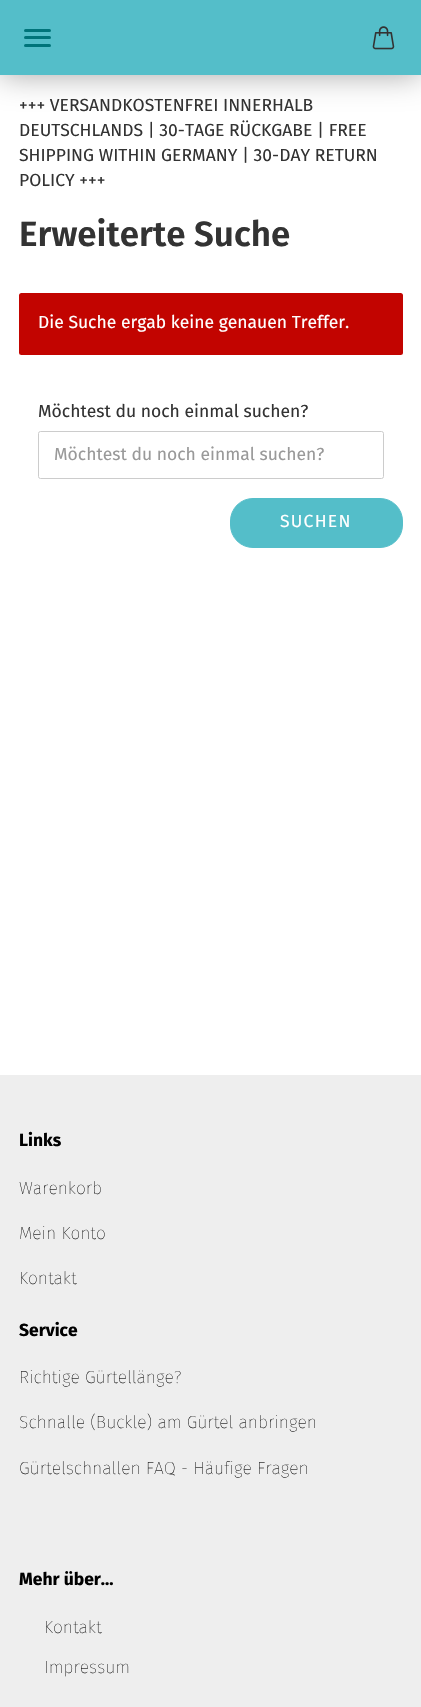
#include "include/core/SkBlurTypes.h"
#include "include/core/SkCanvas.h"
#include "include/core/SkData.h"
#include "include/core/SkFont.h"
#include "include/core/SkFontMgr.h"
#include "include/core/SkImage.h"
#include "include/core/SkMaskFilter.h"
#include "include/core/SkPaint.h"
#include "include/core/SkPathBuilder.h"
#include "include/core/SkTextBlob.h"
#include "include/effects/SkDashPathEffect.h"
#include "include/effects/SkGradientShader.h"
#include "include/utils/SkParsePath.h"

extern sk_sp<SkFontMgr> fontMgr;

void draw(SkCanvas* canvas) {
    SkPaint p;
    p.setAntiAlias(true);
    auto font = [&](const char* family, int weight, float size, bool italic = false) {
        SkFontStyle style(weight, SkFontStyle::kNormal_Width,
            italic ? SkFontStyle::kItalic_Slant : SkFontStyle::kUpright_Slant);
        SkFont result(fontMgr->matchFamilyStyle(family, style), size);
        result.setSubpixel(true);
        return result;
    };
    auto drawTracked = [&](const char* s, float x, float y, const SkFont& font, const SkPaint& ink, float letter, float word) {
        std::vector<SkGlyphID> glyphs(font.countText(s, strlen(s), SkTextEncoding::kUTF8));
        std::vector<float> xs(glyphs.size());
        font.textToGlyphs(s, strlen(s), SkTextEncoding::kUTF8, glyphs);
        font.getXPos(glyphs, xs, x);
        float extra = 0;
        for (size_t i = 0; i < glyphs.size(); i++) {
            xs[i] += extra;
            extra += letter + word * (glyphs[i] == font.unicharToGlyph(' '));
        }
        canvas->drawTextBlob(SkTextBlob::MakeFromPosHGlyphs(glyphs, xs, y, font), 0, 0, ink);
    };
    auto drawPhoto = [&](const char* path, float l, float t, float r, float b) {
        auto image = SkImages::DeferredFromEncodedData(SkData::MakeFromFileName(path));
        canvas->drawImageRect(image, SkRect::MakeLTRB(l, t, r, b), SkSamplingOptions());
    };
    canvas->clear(0xFFFFFFFF);
    p.setColor(0x59000000);
    p.setMaskFilter(SkMaskFilter::MakeBlur(kNormal_SkBlurStyle, 15.5f));
    canvas->drawRect(SkRect::MakeLTRB(0, 0, 421, 75), p);
    p.setMaskFilter(nullptr);
    p.setColor(0xFF54BEC9);
    canvas->drawRect(SkRect::MakeLTRB(0, 0, 421, 75), p);
    drawPhoto("media/1.png", 372, 26, 395, 50);
    p.setColor(0xFF00747A);
    canvas->drawRoundRect(SkRect::MakeLTRB(24, 36, 51, 39), 1.5f, 1.5f, p);
    canvas->drawRoundRect(SkRect::MakeLTRB(24, 29, 51, 32), 1.5f, 1.5f, p);
    canvas->drawRoundRect(SkRect::MakeLTRB(24, 44, 51, 47), 1.5f, 1.5f, p);
    auto font1 = font("Fira Sans", 400, 17.5f);
    p.setColor(0xFF333333);
    {
        const struct { const char* s; float x, y; } items[] = {
            {"+++ VERSANDKOSTENFREI INNERHALB", 19, 111},
            {"DEUTSCHLANDS | 30-TAGE RÜCKGABE | FREE", 19, 136},
            {"SHIPPING WITHIN GERMANY | 30-DAY RETURN", 19, 161},
            {"POLICY +++", 19, 186},
        };
        for (auto [s, x, y] : items) {
            canvas->drawString(s, x, y, font1, p);
        }
    }
    auto font2 = font("Fira Sans", 600, 35);
    canvas->drawString("Erweiterte Suche", 19, 246, font2, p);
    p.setColor(0xFFC20400);
    canvas->drawRoundRect(SkRect::MakeLTRB(19, 293, 403, 355), 2.5f, 2.5f, p);
    p.setColor(0xFFFFFFFF);
    canvas->drawString("Die Suche ergab keine genauen Treffer.", 38, 328, font1, p);
    p.setColor(0xFF333333);
    canvas->drawString("Möchtest du noch einmal suchen?", 38, 417, font1, p);
    p.setStyle(SkPaint::kStroke_Style);
    p.setStrokeWidth(1);
    p.setColor(0xFFCCCCCC);
    canvas->drawRoundRect(SkRect::MakeLTRB(38.5f, 431.5f, 383.5f, 478.5f), 2, 2, p);
    p.setStyle(SkPaint::kFill_Style);
    p.setColor(0xFF999999);
    canvas->drawString("Möchtest du noch einmal suchen?", 54, 460, font1, p);
    p.setColor(0xFF54BEC9);
    canvas->drawRoundRect(SkRect::MakeLTRB(230.5f, 498.5f, 402.5f, 547.5f), 22.5f, 22.5f, p);
    p.setStyle(SkPaint::kStroke_Style);
    canvas->drawRoundRect(SkRect::MakeLTRB(230.5f, 498.5f, 402.5f, 547.5f), 22.5f, 22.5f, p);
    p.setStyle(SkPaint::kFill_Style);
    p.setColor(0xFFFFFFFF);
    drawTracked("SUCHEN", 280, 527, font1, p, 1.25f, 0);
    p.setColor(0xFFEEEEEE);
    canvas->drawRect(SkRect::MakeLTRB(0, 1075, 421, 1707), p);
    auto font3 = font("Fira Sans", 700, 17.5f);
    p.setColor(0xFF000000);
    canvas->drawString("Links", 19, 1146, font3, p);
    auto font4 = font("Fira Sans", 200, 17.5f);
    {
        const struct { const char* s; float x, y; } items[] = {
            {"Warenkorb", 19, 1194},
            {"Mein Konto", 19, 1239},
            {"Kontakt", 19, 1284},
        };
        for (auto [s, x, y] : items) {
            canvas->drawString(s, x, y, font4, p);
        }
    }
    canvas->drawString("Service", 19, 1336, font3, p);
    {
        const struct { const char* s; float x, y; } items[] = {
            {"Richtige Gürtellänge?", 19, 1383},
            {"Schnalle (Buckle) am Gürtel anbringen", 19, 1428},
            {"Gürtelschnallen FAQ - Häufige Fragen", 19, 1474},
        };
        for (auto [s, x, y] : items) {
            canvas->drawString(s, x, y, font4, p);
        }
    }
    canvas->drawString("Mehr über...", 19, 1585, font3, p);
    canvas->drawString("Kontakt", 44, 1633, font4, p);
    canvas->drawString("Impressum", 44, 1673, font4, p);
}
